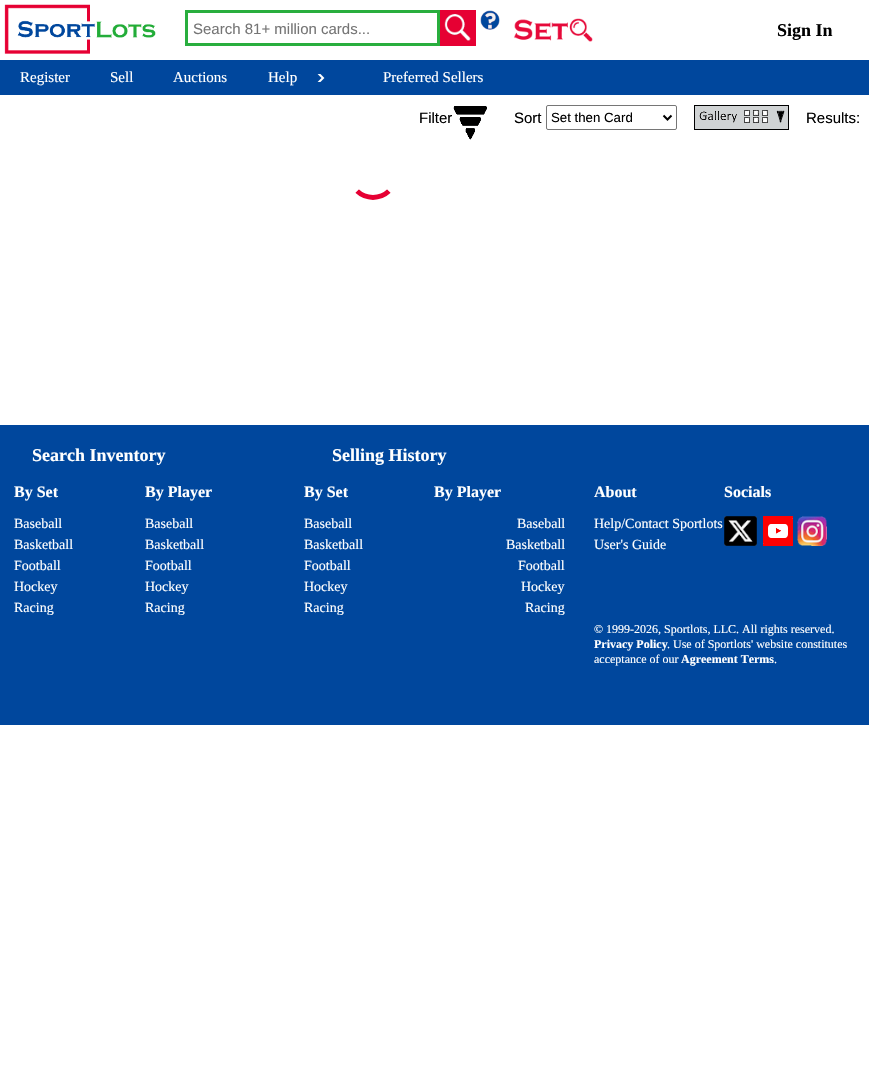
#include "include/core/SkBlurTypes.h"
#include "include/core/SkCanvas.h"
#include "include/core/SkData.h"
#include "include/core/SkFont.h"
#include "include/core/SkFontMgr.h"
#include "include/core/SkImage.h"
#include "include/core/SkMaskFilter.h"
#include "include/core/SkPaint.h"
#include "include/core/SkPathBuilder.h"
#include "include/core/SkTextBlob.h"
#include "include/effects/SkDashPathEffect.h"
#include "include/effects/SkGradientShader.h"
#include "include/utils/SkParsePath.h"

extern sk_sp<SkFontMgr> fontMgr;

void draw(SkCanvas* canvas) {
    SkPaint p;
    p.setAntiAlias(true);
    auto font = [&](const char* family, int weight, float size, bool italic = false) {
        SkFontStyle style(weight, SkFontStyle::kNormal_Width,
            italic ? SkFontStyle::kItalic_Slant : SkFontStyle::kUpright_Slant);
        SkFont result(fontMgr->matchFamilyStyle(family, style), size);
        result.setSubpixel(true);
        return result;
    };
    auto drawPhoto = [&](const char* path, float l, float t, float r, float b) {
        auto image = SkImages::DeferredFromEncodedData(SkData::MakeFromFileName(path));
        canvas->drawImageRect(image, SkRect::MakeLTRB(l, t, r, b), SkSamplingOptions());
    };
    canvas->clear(0xFFFFFFFF);
    drawPhoto("media/1.png", 4, 4, 156, 54);
    p.setStyle(SkPaint::kStroke_Style);
    p.setStrokeWidth(3);
    p.setColor(0xFF29AE3E);
    canvas->drawRect(SkRect::MakeLTRB(186.5f, 11.5f, 438.5f, 44.5f), p);
    auto font1 = font("Liberation Sans", 400, 15);
    p.setStyle(SkPaint::kFill_Style);
    p.setColor(0xFF757575);
    canvas->drawString("Search 81+ million cards...", 193, 34, font1, p);
    drawPhoto("media/2.png", 440, 10, 476, 46);
    drawPhoto("media/3.png", 480, 10, 500, 30);
    drawPhoto("media/4.png", 513, 18, 593, 42);
    auto font2 = font("Liberation Serif", 700, 18);
    p.setColor(0xFF000000);
    canvas->drawString("Sign In", 777, 36, font2, p);
    p.setColor(0xFF00479D);
    canvas->drawRect(SkRect::MakeLTRB(0, 60, 869, 95), p);
    auto font3 = font("Liberation Serif", 400, 15);
    p.setColor(0xFFFFFFFF);
    {
        const struct { const char* s; float x, y; } items[] = {
            {"Register", 20, 82},
            {"Sell", 110, 82},
            {"Auctions", 173, 82},
            {"Help", 268, 82},
        };
        for (auto [s, x, y] : items) {
            canvas->drawString(s, x, y, font3, p);
        }
    }
    drawPhoto("media/5.png", 317, 74, 325, 82);
    canvas->drawString("Preferred Sellers", 383, 82, font3, p);
    p.setColor(0xFF000000);
    canvas->drawString("Filter", 419, 123, font1, p);
    drawPhoto("media/6.png", 453, 106, 487, 140);
    canvas->drawString("Sort", 514, 123, font1, p);
    p.setStyle(SkPaint::kStroke_Style);
    p.setStrokeWidth(1);
    p.setColor(0xFF767676);
    canvas->drawRoundRect(SkRect::MakeLTRB(546.5f, 105.5f, 676.5f, 129.5f), 1.5f, 1.5f, p);
    p.setStrokeWidth(2);
    p.setColor(0xFF000000);
    canvas->drawPath(SkPathBuilder().moveTo(663.5f, 115.5f).lineTo(667.5f, 119.5f).lineTo(671.5f, 115.5f).detach(), p);
    auto font4 = font("Liberation Sans", 400, 13.25f);
    p.setStyle(SkPaint::kFill_Style);
    canvas->drawString("Set then Card", 551, 122, font4, p);
    p.setColor(0xFFD0D3D4);
    canvas->drawRect(SkRect::MakeLTRB(694.5f, 105.5f, 788.5f, 129.5f), p);
    p.setStyle(SkPaint::kStroke_Style);
    p.setStrokeWidth(1);
    p.setColor(0xFF000000);
    canvas->drawRect(SkRect::MakeLTRB(694.5f, 105.5f, 788.5f, 129.5f), p);
    drawPhoto("media/7.png", 699, 110, 785, 123);
    p.setStyle(SkPaint::kFill_Style);
    canvas->drawString("Results:", 806, 123, font1, p);
    p.setStyle(SkPaint::kStroke_Style);
    p.setStrokeWidth(5);
    p.setColor(0xFFE60033);
    canvas->drawPath(SkPathBuilder().moveTo(389, 191).cubicTo(380, 199.5f, 366, 199.5f, 357, 191).detach(), p);
    p.setColor(0xFFFFFFFF);
    canvas->drawPath(SkPathBuilder().moveTo(357, 191).cubicTo(352, 185.5f, 349.5f, 178, 351, 170.5f).cubicTo(356, 144.5f, 395.5f, 148, 395.5f, 175).cubicTo(395.5f, 181, 393, 186.5f, 389, 191).detach(), p);
    p.setStyle(SkPaint::kFill_Style);
    p.setColor(0xFF00479D);
    canvas->drawRect(SkRect::MakeLTRB(0, 425, 869, 725), p);
    p.setColor(0xFFFFFFFF);
    canvas->drawString("Search Inventory", 32, 461, font2, p);
    auto font5 = font("Liberation Serif", 700, 16);
    canvas->drawString("By Set", 14, 497, font5, p);
    auto font6 = font("Liberation Serif", 400, 14);
    {
        const struct { const char* s; float x, y; } items[] = {
            {"Baseball", 14, 528},
            {"Basketball", 14, 549},
            {"Football", 14, 570},
            {"Hockey", 14, 591},
            {"Racing", 14, 612},
        };
        for (auto [s, x, y] : items) {
            canvas->drawString(s, x, y, font6, p);
        }
    }
    canvas->drawString("By Player", 145, 497, font5, p);
    {
        const struct { const char* s; float x, y; } items[] = {
            {"Baseball", 145, 528},
            {"Basketball", 145, 549},
            {"Football", 145, 570},
            {"Hockey", 145, 591},
            {"Racing", 145, 612},
        };
        for (auto [s, x, y] : items) {
            canvas->drawString(s, x, y, font6, p);
        }
    }
    canvas->drawString("Selling History", 332, 461, font2, p);
    canvas->drawString("By Set", 304, 497, font5, p);
    {
        const struct { const char* s; float x, y; } items[] = {
            {"Baseball", 304, 528},
            {"Basketball", 304, 549},
            {"Football", 304, 570},
            {"Hockey", 304, 591},
            {"Racing", 304, 612},
        };
        for (auto [s, x, y] : items) {
            canvas->drawString(s, x, y, font6, p);
        }
    }
    canvas->drawString("By Player", 434, 497, font5, p);
    {
        const struct { const char* s; float x, y; } items[] = {
            {"Baseball", 517, 528},
            {"Basketball", 506, 549},
            {"Football", 518, 570},
            {"Hockey", 521, 591},
            {"Racing", 525, 612},
        };
        for (auto [s, x, y] : items) {
            canvas->drawString(s, x, y, font6, p);
        }
    }
    canvas->drawString("About", 594, 497, font5, p);
    canvas->drawString("Help/Contact Sportlots", 594, 528, font6, p);
    canvas->drawString("User's Guide", 594, 549, font6, p);
    canvas->drawString("Socials", 724, 497, font5, p);
    drawPhoto("media/8.png", 724, 516, 757, 546);
    drawPhoto("media/9.png", 763, 516, 793, 546);
    drawPhoto("media/10.png", 797, 516, 827, 546);
    auto font7 = font("Liberation Serif", 400, 12);
    canvas->drawString("© 1999-2026, Sportlots, LLC. All rights reserved.", 594, 633, font7, p);
    auto font8 = font("Liberation Serif", 700, 12);
    canvas->drawString("Privacy Policy", 594, 648, font8, p);
    canvas->drawString(". Use of Sportlots' website constitutes", 667, 648, font7, p);
    canvas->drawString("acceptance of our", 594, 663, font7, p);
    canvas->drawString("Agreement Terms", 681, 663, font8, p);
    canvas->drawString(".", 774, 663, font7, p);
}
